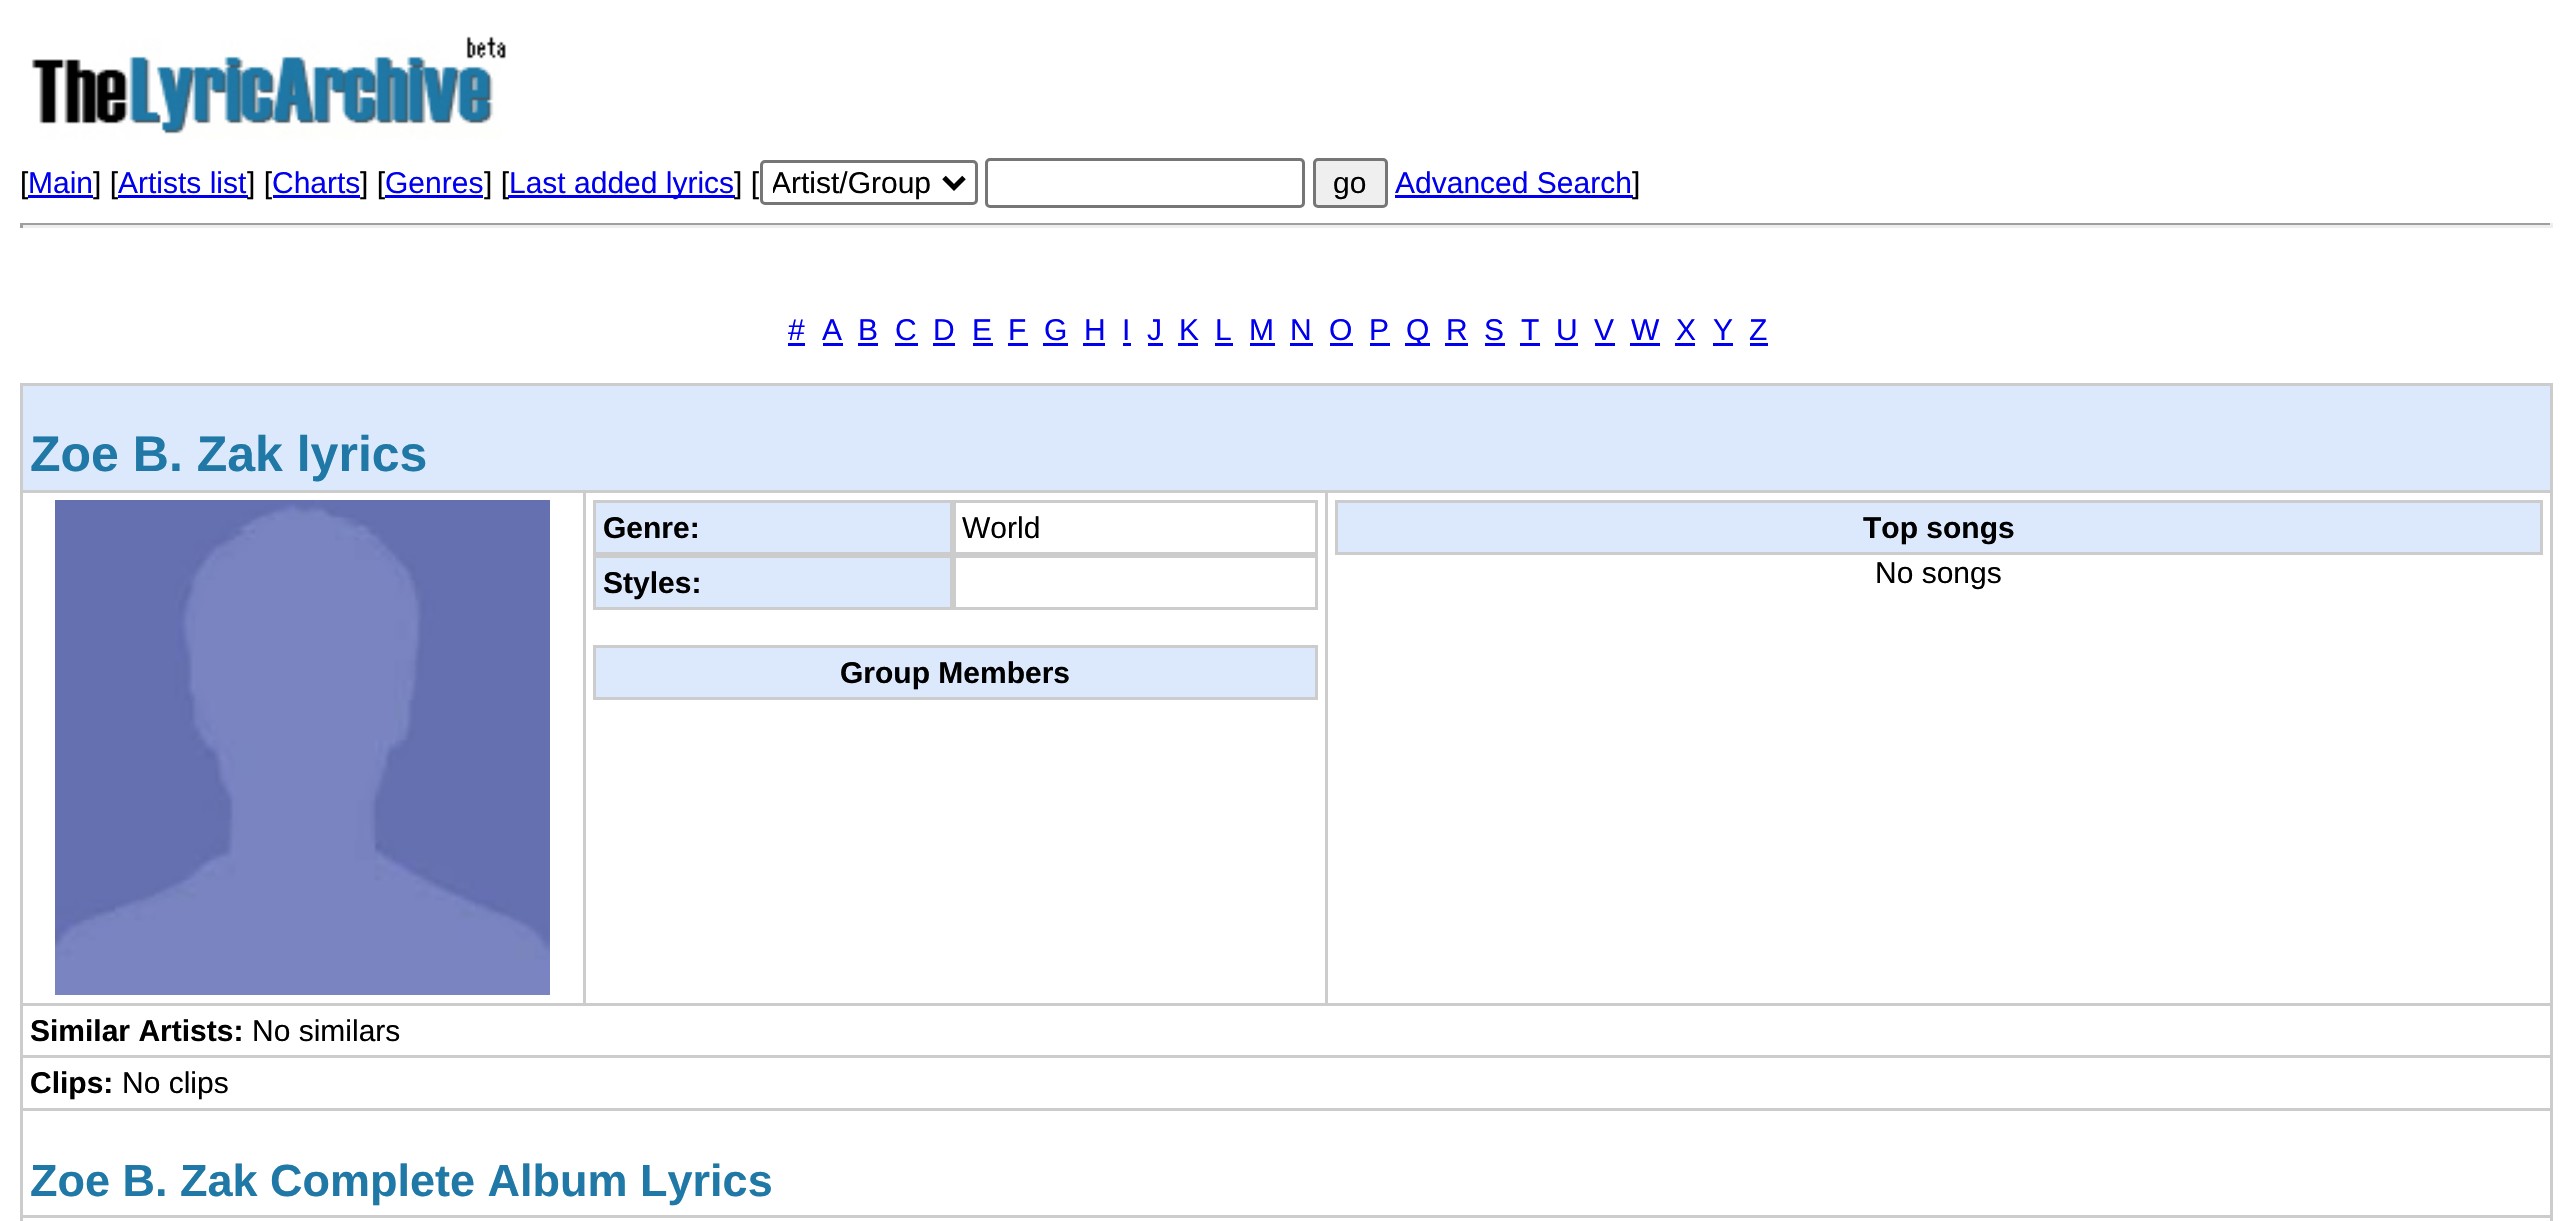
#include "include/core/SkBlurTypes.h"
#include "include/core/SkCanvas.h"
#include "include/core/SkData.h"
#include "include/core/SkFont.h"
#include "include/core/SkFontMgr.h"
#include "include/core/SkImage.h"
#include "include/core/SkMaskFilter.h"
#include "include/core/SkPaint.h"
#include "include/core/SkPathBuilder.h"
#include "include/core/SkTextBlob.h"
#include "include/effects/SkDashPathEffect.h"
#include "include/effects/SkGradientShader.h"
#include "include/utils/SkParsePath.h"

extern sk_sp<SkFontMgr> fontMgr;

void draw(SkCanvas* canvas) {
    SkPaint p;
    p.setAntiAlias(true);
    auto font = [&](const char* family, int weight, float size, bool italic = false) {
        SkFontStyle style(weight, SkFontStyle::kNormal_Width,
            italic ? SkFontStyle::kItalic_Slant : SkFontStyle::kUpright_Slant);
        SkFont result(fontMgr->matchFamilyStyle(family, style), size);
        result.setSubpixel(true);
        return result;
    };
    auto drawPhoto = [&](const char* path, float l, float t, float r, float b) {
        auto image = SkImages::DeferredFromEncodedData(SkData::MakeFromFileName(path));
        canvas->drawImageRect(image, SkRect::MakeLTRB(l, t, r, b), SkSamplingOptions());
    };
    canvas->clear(0xFFFFFFFF);
    drawPhoto("media/1.png", 31, 36, 506, 140);
    auto font1 = font("Liberation Sans", 400, 30);
    p.setColor(0xFF000000);
    canvas->drawString("[", 20, 193, font1, p);
    p.setColor(0xFF0000EE);
    canvas->drawString("Main", 28, 193, font1, p);
    canvas->drawRect(SkRect::MakeLTRB(28, 195, 93, 198), p);
    p.setColor(0xFF000000);
    canvas->drawString("] [", 93, 193, font1, p);
    p.setColor(0xFF0000EE);
    canvas->drawString("Artists list", 118, 193, font1, p);
    canvas->drawRect(SkRect::MakeLTRB(118, 195, 248, 198), p);
    p.setColor(0xFF000000);
    canvas->drawString("] [", 247, 193, font1, p);
    p.setColor(0xFF0000EE);
    canvas->drawString("Charts", 272, 193, font1, p);
    canvas->drawRect(SkRect::MakeLTRB(273, 195, 360, 198), p);
    p.setColor(0xFF000000);
    canvas->drawString("] [", 360, 193, font1, p);
    p.setColor(0xFF0000EE);
    canvas->drawString("Genres", 385, 193, font1, p);
    canvas->drawRect(SkRect::MakeLTRB(385, 195, 483, 198), p);
    p.setColor(0xFF000000);
    canvas->drawString("] [", 484, 193, font1, p);
    p.setColor(0xFF0000EE);
    canvas->drawRect(SkRect::MakeLTRB(508, 195, 735, 198), p);
    canvas->drawString("Last added lyrics", 509, 193, font1, p);
    p.setColor(0xFF000000);
    canvas->drawString("] [", 734, 193, font1, p);
    p.setStyle(SkPaint::kStroke_Style);
    p.setStrokeWidth(3);
    p.setColor(0xFF767676);
    canvas->drawRoundRect(SkRect::MakeLTRB(761.5f, 161.5f, 976.5f, 203.5f), 3.5f, 3.5f, p);
    p.setStrokeWidth(5);
    p.setColor(0xFF000000);
    canvas->drawPath(SkPathBuilder().moveTo(944, 177.5f).lineTo(954, 187.5f).lineTo(964, 177.5f).detach(), p);
    canvas->save();
    canvas->clipRect(SkRect::MakeLTRB(773, 163, 935, 203));
    p.setStyle(SkPaint::kFill_Style);
    canvas->drawString("Artist/Group", 771, 193, font1, p);
    canvas->restore();
    p.setStyle(SkPaint::kStroke_Style);
    p.setStrokeWidth(3);
    p.setColor(0xFF767676);
    canvas->drawRoundRect(SkRect::MakeLTRB(986.5f, 159.5f, 1303.5f, 206.5f), 3.5f, 3.5f, p);
    p.setStyle(SkPaint::kFill_Style);
    p.setColor(0xFFEFEFEF);
    canvas->drawRoundRect(SkRect::MakeLTRB(1314.5f, 159.5f, 1386.5f, 206.5f), 3.5f, 3.5f, p);
    p.setStyle(SkPaint::kStroke_Style);
    p.setColor(0xFF767676);
    canvas->drawRoundRect(SkRect::MakeLTRB(1314.5f, 159.5f, 1386.5f, 206.5f), 3.5f, 3.5f, p);
    p.setStyle(SkPaint::kFill_Style);
    p.setColor(0xFF000000);
    canvas->drawString("go", 1333, 193, font1, p);
    p.setColor(0xFF0000EE);
    canvas->drawString("Advanced Search", 1395, 193, font1, p);
    canvas->drawRect(SkRect::MakeLTRB(1395, 195, 1633, 198), p);
    p.setColor(0xFF000000);
    canvas->drawString("]", 1632, 193, font1, p);
    {
        const struct { float l, t, r, b; SkColor color; } items[] = {
            {20, 223, 2553, 225, 0xFF9F9F9F},
            {2550, 223, 2553, 228, 0xFFEEEEEE},
            {20, 225, 2553, 228, 0xFFEEEEEE},
            {20, 223, 23, 228, 0xFF9F9F9F},
        };
        for (auto [l, t, r, b, color] : items) {
            p.setColor(color);
            canvas->drawRect(SkRect::MakeLTRB(l, t, r, b), p);
        }
    }
    p.setColor(0xFF0000EE);
    canvas->drawString("#", 788, 340, font1, p);
    canvas->drawRect(SkRect::MakeLTRB(788, 343, 805, 346), p);
    canvas->drawString("A", 822, 340, font1, p);
    canvas->drawRect(SkRect::MakeLTRB(823, 343, 843, 346), p);
    canvas->drawString("B", 858, 340, font1, p);
    canvas->drawRect(SkRect::MakeLTRB(858, 343, 878, 346), p);
    canvas->drawString("C", 895, 340, font1, p);
    canvas->drawRect(SkRect::MakeLTRB(895, 343, 918, 346), p);
    canvas->drawString("D", 933, 340, font1, p);
    canvas->drawRect(SkRect::MakeLTRB(933, 343, 955, 346), p);
    canvas->drawString("E", 972, 340, font1, p);
    canvas->drawRect(SkRect::MakeLTRB(973, 343, 993, 346), p);
    canvas->drawString("F", 1008, 340, font1, p);
    canvas->drawRect(SkRect::MakeLTRB(1008, 343, 1028, 346), p);
    canvas->drawString("G", 1044, 340, font1, p);
    canvas->drawRect(SkRect::MakeLTRB(1043, 343, 1068, 346), p);
    canvas->drawString("H", 1084, 340, font1, p);
    canvas->drawRect(SkRect::MakeLTRB(1083, 343, 1105, 346), p);
    canvas->drawString("I", 1122, 340, font1, p);
    canvas->drawRect(SkRect::MakeLTRB(1123, 343, 1131, 346), p);
    canvas->drawString("J", 1147, 340, font1, p);
    canvas->drawRect(SkRect::MakeLTRB(1148, 343, 1163, 346), p);
    canvas->drawString("K", 1179, 340, font1, p);
    canvas->drawRect(SkRect::MakeLTRB(1178, 343, 1198, 346), p);
    canvas->drawString("L", 1215, 340, font1, p);
    canvas->drawRect(SkRect::MakeLTRB(1215, 343, 1233, 346), p);
    canvas->drawString("M", 1249, 340, font1, p);
    canvas->drawRect(SkRect::MakeLTRB(1250, 343, 1275, 346), p);
    canvas->drawString("N", 1290, 340, font1, p);
    canvas->drawRect(SkRect::MakeLTRB(1290, 343, 1313, 346), p);
    canvas->drawString("O", 1329, 340, font1, p);
    canvas->drawRect(SkRect::MakeLTRB(1330, 343, 1353, 346), p);
    canvas->drawString("P", 1369, 340, font1, p);
    canvas->drawRect(SkRect::MakeLTRB(1370, 343, 1390, 346), p);
    canvas->drawRect(SkRect::MakeLTRB(1405, 343, 1430, 346), p);
    canvas->drawString("Q", 1406, 340, font1, p);
    canvas->drawString("R", 1446, 340, font1, p);
    canvas->drawRect(SkRect::MakeLTRB(1445, 343, 1468, 346), p);
    canvas->drawString("S", 1484, 340, font1, p);
    canvas->drawRect(SkRect::MakeLTRB(1485, 343, 1505, 346), p);
    canvas->drawString("T", 1521, 340, font1, p);
    canvas->drawRect(SkRect::MakeLTRB(1520, 343, 1540, 346), p);
    canvas->drawString("U", 1556, 340, font1, p);
    canvas->drawRect(SkRect::MakeLTRB(1555, 343, 1578, 346), p);
    canvas->drawString("V", 1594, 340, font1, p);
    canvas->drawRect(SkRect::MakeLTRB(1595, 343, 1615, 346), p);
    canvas->drawString("W", 1631, 340, font1, p);
    canvas->drawRect(SkRect::MakeLTRB(1630, 343, 1660, 346), p);
    canvas->drawString("X", 1676, 340, font1, p);
    canvas->drawRect(SkRect::MakeLTRB(1675, 343, 1695, 346), p);
    canvas->drawString("Y", 1713, 340, font1, p);
    canvas->drawRect(SkRect::MakeLTRB(1713, 343, 1733, 346), p);
    canvas->drawString("Z", 1749, 340, font1, p);
    {
        const struct { float l, t, r, b; SkColor color; } items[] = {
            {1750, 343, 1768, 346, 0xFF0000EE},
            {20, 383, 2553, 386, 0xFFCCCCCC},
            {2550, 383, 2553, 1221, 0xFFCCCCCC},
            {20, 383, 23, 1221, 0xFFCCCCCC},
            {23, 386, 2550, 490, 0xFFDCE8FB},
        };
        for (auto [l, t, r, b, color] : items) {
            p.setColor(color);
            canvas->drawRect(SkRect::MakeLTRB(l, t, r, b), p);
        }
    }
    auto font2 = font("Liberation Sans", 700, 50);
    p.setColor(0xFF1F78A6);
    canvas->drawString("Zoe B. Zak lyrics", 30, 471, font2, p);
    {
        const struct { float l, t, r, b; SkColor color; } items[] = {
            {1325, 490, 2553, 493, 0xFFCCCCCC},
            {20, 1003, 2553, 1006, 0xFFCCCCCC},
            {1325, 490, 1328, 1005, 0xFFCCCCCC},
            {583, 490, 1328, 493, 0xFFCCCCCC},
            {583, 490, 586, 1005, 0xFFCCCCCC},
            {20, 490, 585, 493, 0xFFCCCCCC},
        };
        for (auto [l, t, r, b, color] : items) {
            p.setColor(color);
            canvas->drawRect(SkRect::MakeLTRB(l, t, r, b), p);
        }
    }
    drawPhoto("media/2.png", 55, 500, 550, 995);
    p.setColor(0xFFDCE8FB);
    canvas->drawRect(SkRect::MakeLTRB(594.5f, 501.5f, 951.5f, 553.5f), p);
    p.setStyle(SkPaint::kStroke_Style);
    p.setColor(0xFFCCCCCC);
    canvas->drawRect(SkRect::MakeLTRB(594.5f, 501.5f, 951.5f, 553.5f), p);
    auto font3 = font("Liberation Sans", 700, 30);
    p.setStyle(SkPaint::kFill_Style);
    p.setColor(0xFF000000);
    canvas->drawString("Genre:", 603, 538, font3, p);
    p.setStyle(SkPaint::kStroke_Style);
    p.setColor(0xFFCCCCCC);
    canvas->drawRect(SkRect::MakeLTRB(954.5f, 501.5f, 1316.5f, 553.5f), p);
    p.setStyle(SkPaint::kFill_Style);
    p.setColor(0xFF000000);
    canvas->drawString("World", 962, 538, font1, p);
    p.setColor(0xFFDCE8FB);
    canvas->drawRect(SkRect::MakeLTRB(594.5f, 556.5f, 951.5f, 608.5f), p);
    p.setStyle(SkPaint::kStroke_Style);
    p.setColor(0xFFCCCCCC);
    canvas->drawRect(SkRect::MakeLTRB(594.5f, 556.5f, 951.5f, 608.5f), p);
    p.setStyle(SkPaint::kFill_Style);
    p.setColor(0xFF000000);
    canvas->drawString("Styles:", 603, 593, font3, p);
    p.setStyle(SkPaint::kStroke_Style);
    p.setColor(0xFFCCCCCC);
    canvas->drawRect(SkRect::MakeLTRB(954.5f, 556.5f, 1316.5f, 608.5f), p);
    p.setStyle(SkPaint::kFill_Style);
    p.setColor(0xFFDCE8FB);
    canvas->drawRect(SkRect::MakeLTRB(594.5f, 646.5f, 1316.5f, 698.5f), p);
    p.setStyle(SkPaint::kStroke_Style);
    p.setColor(0xFFCCCCCC);
    canvas->drawRect(SkRect::MakeLTRB(594.5f, 646.5f, 1316.5f, 698.5f), p);
    p.setStyle(SkPaint::kFill_Style);
    p.setColor(0xFF000000);
    canvas->drawString("Group Members", 840, 683, font3, p);
    p.setColor(0xFFDCE8FB);
    canvas->drawRect(SkRect::MakeLTRB(1336.5f, 501.5f, 2541.5f, 553.5f), p);
    p.setStyle(SkPaint::kStroke_Style);
    p.setColor(0xFFCCCCCC);
    canvas->drawRect(SkRect::MakeLTRB(1336.5f, 501.5f, 2541.5f, 553.5f), p);
    p.setStyle(SkPaint::kFill_Style);
    p.setColor(0xFF000000);
    canvas->drawString("Top songs", 1863, 538, font3, p);
    canvas->drawString("No songs", 1875, 583, font1, p);
    canvas->drawString("Similar Artists:", 30, 1041, font3, p);
    canvas->drawString("No similars", 252, 1041, font1, p);
    p.setColor(0xFFCCCCCC);
    canvas->drawRect(SkRect::MakeLTRB(20, 1055, 2553, 1058), p);
    p.setColor(0xFF000000);
    canvas->drawString("Clips:", 30, 1093, font3, p);
    canvas->drawString("No clips", 122, 1093, font1, p);
    p.setColor(0xFFCCCCCC);
    canvas->drawRect(SkRect::MakeLTRB(20, 1108, 2553, 1111), p);
    auto font4 = font("Liberation Sans", 700, 45);
    p.setColor(0xFF1F78A6);
    canvas->drawString("Zoe B. Zak Complete Album Lyrics", 30, 1196, font4, p);
    p.setColor(0xFFCCCCCC);
    canvas->drawRect(SkRect::MakeLTRB(20, 1215, 2553, 1218), p);
}
